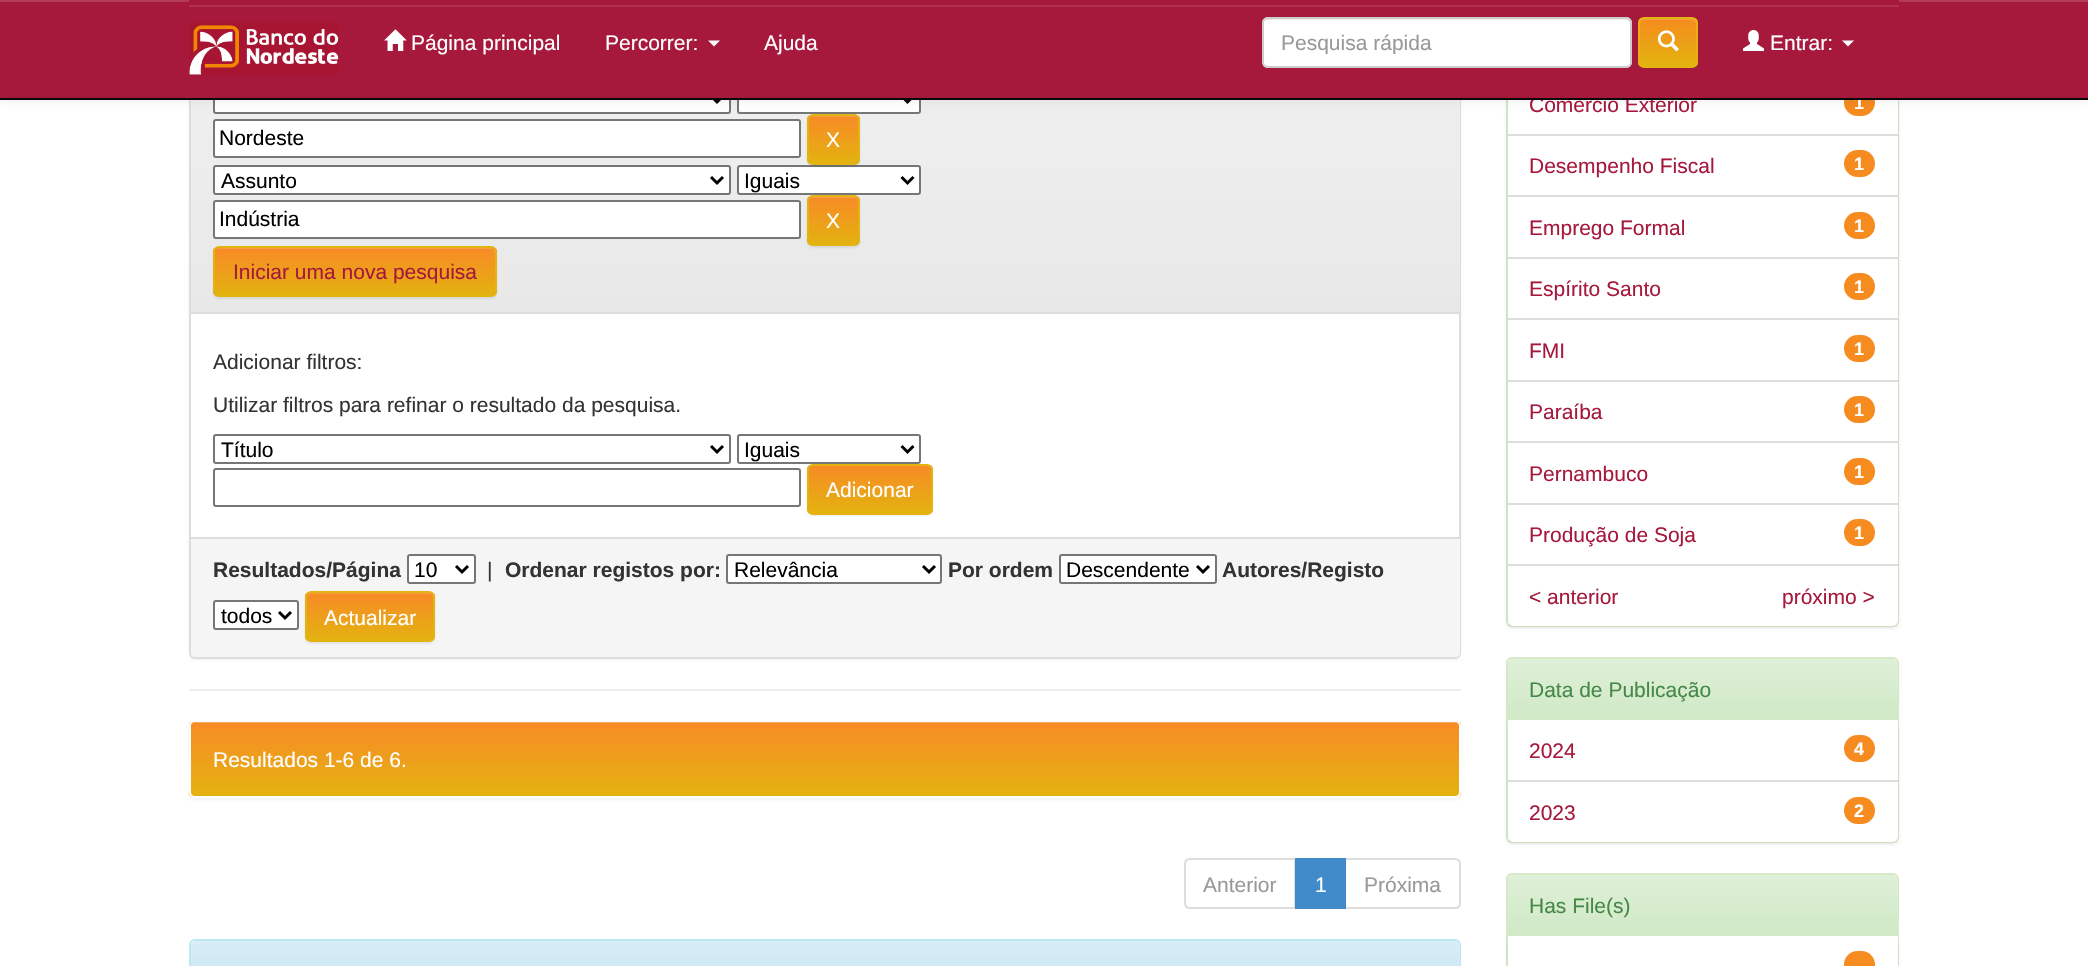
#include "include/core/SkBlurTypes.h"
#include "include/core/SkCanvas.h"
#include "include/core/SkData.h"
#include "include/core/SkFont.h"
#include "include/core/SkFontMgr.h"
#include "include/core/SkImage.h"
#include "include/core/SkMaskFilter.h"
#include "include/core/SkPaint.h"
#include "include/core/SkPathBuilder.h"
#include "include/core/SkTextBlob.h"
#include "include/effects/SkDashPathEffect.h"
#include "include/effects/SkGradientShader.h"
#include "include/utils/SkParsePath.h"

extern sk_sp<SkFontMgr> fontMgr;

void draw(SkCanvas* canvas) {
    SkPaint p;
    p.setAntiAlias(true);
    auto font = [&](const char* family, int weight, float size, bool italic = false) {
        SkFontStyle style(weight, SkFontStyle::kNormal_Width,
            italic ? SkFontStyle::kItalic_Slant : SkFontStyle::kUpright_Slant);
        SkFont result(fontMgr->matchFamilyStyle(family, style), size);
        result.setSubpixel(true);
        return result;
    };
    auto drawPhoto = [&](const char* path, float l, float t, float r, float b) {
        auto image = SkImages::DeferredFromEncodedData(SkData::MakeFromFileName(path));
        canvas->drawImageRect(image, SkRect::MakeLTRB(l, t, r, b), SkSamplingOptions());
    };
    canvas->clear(0xFFFFFFFF);
    p.setColor(0x0D000000);
    p.setMaskFilter(SkMaskFilter::MakeBlur(kNormal_SkBlurStyle, 1.5f));
    canvas->drawRoundRect(SkRect::MakeLTRB(189, -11, 1461, 660), 6, 6, p);
    p.setMaskFilter(nullptr);
    p.setColor(0xFFFFFFFF);
    canvas->drawRoundRect(SkRect::MakeLTRB(190, -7, 1460, 658), 5, 5, p);
    p.setStyle(SkPaint::kStroke_Style);
    p.setStrokeWidth(2);
    p.setColor(0xFFDDDDDD);
    canvas->drawRoundRect(SkRect::MakeLTRB(190, -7, 1460, 658), 5, 5, p);
    p.setStyle(SkPaint::kFill_Style);
    {
        const SkColor colors[] = {0xFFF5F5F5, 0xFFE8E8E8};
        const float stops[] = {0, 1};
        const SkPoint ends[] = {{825, -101}, {825, 312}};
        p.setShader(SkGradientShader::MakeLinear(ends, colors, stops, 2, SkTileMode::kClamp));
        p.setAlpha(255);
    }
    canvas->drawRect(SkRect::MakeLTRB(191, 100, 1460, 312), p);
    p.setShader(nullptr);
    p.setColor(0xFFFFFFFF);
    canvas->drawRoundRect(SkRect::MakeLTRB(214, 85, 730, 113), 2, 2, p);
    p.setStyle(SkPaint::kStroke_Style);
    p.setColor(0xFF767676);
    canvas->drawRoundRect(SkRect::MakeLTRB(214, 85, 730, 113), 2, 2, p);
    p.setStrokeWidth(3);
    p.setColor(0xFF000000);
    canvas->drawPath(SkPathBuilder().moveTo(711, 96).lineTo(717, 102).lineTo(723, 96).detach(), p);
    p.setStyle(SkPaint::kFill_Style);
    p.setColor(0xFFFFFFFF);
    canvas->drawRoundRect(SkRect::MakeLTRB(738, 85, 920, 113), 2, 2, p);
    p.setStyle(SkPaint::kStroke_Style);
    p.setStrokeWidth(2);
    p.setColor(0xFF767676);
    canvas->drawRoundRect(SkRect::MakeLTRB(738, 85, 920, 113), 2, 2, p);
    p.setStrokeWidth(3);
    p.setColor(0xFF000000);
    canvas->drawPath(SkPathBuilder().moveTo(901.5f, 96).lineTo(907.5f, 102).lineTo(913.5f, 96).detach(), p);
    p.setStyle(SkPaint::kFill_Style);
    p.setColor(0x0D000000);
    p.setMaskFilter(SkMaskFilter::MakeBlur(kNormal_SkBlurStyle, 1.5f));
    canvas->drawRoundRect(SkRect::MakeLTRB(1506, -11, 1899, 629), 6, 6, p);
    p.setMaskFilter(nullptr);
    p.setColor(0xFFFFFFFF);
    canvas->drawRoundRect(SkRect::MakeLTRB(1507, -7, 1898, 626), 5, 5, p);
    p.setStyle(SkPaint::kStroke_Style);
    p.setStrokeWidth(2);
    p.setColor(0xFFD6E9C6);
    canvas->drawRoundRect(SkRect::MakeLTRB(1507, -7, 1898, 626), 5, 5, p);
    p.setStyle(SkPaint::kFill_Style);
    p.setColor(0x12000000);
    p.setMaskFilter(SkMaskFilter::MakeBlur(kNormal_SkBlurStyle, 1.5f));
    canvas->drawRoundRect(SkRect::MakeLTRB(1508, -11, 1898, 627), 6, 6, p);
    p.setMaskFilter(nullptr);
    p.setColor(0xFFFFFFFF);
    canvas->drawRect(SkRect::MakeLTRB(1508, 100, 1898, 134), p);
    p.setColor(0xFFF68B1F);
    canvas->drawRoundRect(SkRect::MakeLTRB(1844, 89, 1875, 116), 13.5f, 13.5f, p);
    p.setColor(0x12000000);
    p.setMaskFilter(SkMaskFilter::MakeBlur(kNormal_SkBlurStyle, 4));
    canvas->drawRect(SkRect::MakeLTRB(0, 2, 2088, 101), p);
    p.setMaskFilter(nullptr);
    auto font1 = font("Liberation Sans", 700, 18);
    p.setColor(0xFFFFFFFF);
    canvas->drawString("1", 1854, 109, font1, p);
    p.setColor(0xFFA6193C);
    canvas->drawRect(SkRect::MakeLTRB(0, 2, 2088, 98), p);
    p.setColor(0xFFB33C59);
    canvas->drawRect(SkRect::MakeLTRB(0, 0, 2088, 2), p);
    auto font2 = font("Liberation Sans", 400, 21);
    p.setColor(0xFFA6193C);
    canvas->drawString("Comércio Exterior", 1529, 112, font2, p);
    p.setColor(0xFF080808);
    canvas->drawRect(SkRect::MakeLTRB(0, 98, 2088, 100), p);
    drawPhoto("media/1.png", 189, 22, 339, 75);
    p.setColor(0xFFAF3050);
    canvas->drawRect(SkRect::MakeLTRB(189, 5, 1899, 7), p);
    p.setColor(0xFFA6193C);
    canvas->drawRect(SkRect::MakeLTRB(189, 0, 1899, 2), p);
    drawPhoto("media/2.png", 384, 29, 407, 51);
    p.setColor(0xFFFFFFFF);
    canvas->drawString("Página principal", 411, 50, font2, p);
    canvas->drawString("Percorrer:", 605, 50, font2, p);
    canvas->drawPath(SkPathBuilder().moveTo(708, 40.5f).lineTo(720, 40.5f).lineTo(714, 46.5f).close().detach(), p);
    canvas->drawString("Ajuda", 764, 50, font2, p);
    canvas->drawRoundRect(SkRect::MakeLTRB(1262, 17, 1632, 68), 6, 6, p);
    p.setColor(0xFFECECEC);
    canvas->drawPath(SkPathBuilder().moveTo(1268, 20).lineTo(1626, 20).cubicTo(1628, 20, 1630, 22, 1630, 24).lineTo(1630, 64).cubicTo(1631, 63, 1631, 62, 1631, 61).lineTo(1631, 23).cubicTo(1631, 20, 1629, 18, 1626, 18).lineTo(1268, 18).cubicTo(1265, 18, 1263, 20, 1263, 23).lineTo(1263, 24).cubicTo(1263, 22, 1265, 20, 1268, 20).close().detach(), p);
    p.setStyle(SkPaint::kStroke_Style);
    p.setColor(0xFFCCCCCC);
    canvas->drawRoundRect(SkRect::MakeLTRB(1263, 18, 1631, 67), 5, 5, p);
    canvas->save();
    canvas->clipRect(SkRect::MakeLTRB(1281, 30, 1613, 54));
    p.setStyle(SkPaint::kFill_Style);
    p.setColor(0xFF999999);
    canvas->drawString("Pesquisa rápida", 1281, 50, font2, p);
    canvas->restore();
    p.setColor(0x12000000);
    p.setMaskFilter(SkMaskFilter::MakeBlur(kNormal_SkBlurStyle, 1));
    canvas->drawRoundRect(SkRect::MakeLTRB(1638, 18, 1698, 69), 6, 6, p);
    p.setMaskFilter(nullptr);
    canvas->save();
    canvas->clipPath(SkPathBuilder().moveTo(1644, 17).lineTo(1692, 17).cubicTo(1695.5f, 17, 1698, 19.5f, 1698, 23).lineTo(1698, 62).cubicTo(1698, 65.5f, 1695.5f, 68, 1692, 68).lineTo(1644, 68).cubicTo(1640.5f, 68, 1638, 65.5f, 1638, 62).lineTo(1638, 23).cubicTo(1638, 19.5f, 1640.5f, 17, 1644, 17).close().detach(), true);
    {
        const SkColor colors[] = {0xFFF68B1F, 0xFFE3B30F};
        const float stops[] = {0, 1};
        const SkPoint ends[] = {{1668, 18}, {1668, 66}};
        p.setShader(SkGradientShader::MakeLinear(ends, colors, stops, 2, SkTileMode::kClamp));
        p.setAlpha(255);
    }
    canvas->drawRect(SkRect::MakeLTRB(1638, 18, 1698, 66), p);
    canvas->restore();
    p.setShader(nullptr);
    p.setColor(0x26FFFFFF);
    canvas->drawPath(SkPathBuilder().moveTo(1644, 20).lineTo(1684, 20).cubicTo(1699, 20, 1696, 21, 1696, 37).lineTo(1696, 64).cubicTo(1698, 62, 1697, 57, 1697, 55).lineTo(1697, 42).cubicTo(1697, 16, 1702, 18, 1676, 18).lineTo(1653, 18).cubicTo(1647, 18, 1640, 16, 1640, 24).cubicTo(1640, 22, 1642, 20, 1644, 20).close().detach(), p);
    p.setStyle(SkPaint::kStroke_Style);
    p.setColor(0xFFE3B30F);
    canvas->drawRoundRect(SkRect::MakeLTRB(1639, 18, 1697, 67), 5, 5, p);
    drawPhoto("media/3.png", 1657, 30, 1679, 52);
    drawPhoto("media/4.png", 1743, 30, 1764, 51);
    p.setStyle(SkPaint::kFill_Style);
    p.setColor(0xFFFFFFFF);
    canvas->drawString("Entrar:", 1770, 50, font2, p);
    canvas->drawPath(SkPathBuilder().moveTo(1842, 40.5f).lineTo(1854, 40.5f).lineTo(1848, 46.5f).close().detach(), p);
    p.setColor(0xFFDDDDDD);
    canvas->drawRect(SkRect::MakeLTRB(191, 312, 1460, 314), p);
    p.setColor(0xFFFFFFFF);
    canvas->drawRoundRect(SkRect::MakeLTRB(214, 120, 800, 157), 2, 2, p);
    p.setStyle(SkPaint::kStroke_Style);
    p.setColor(0xFF767676);
    canvas->drawRoundRect(SkRect::MakeLTRB(214, 120, 800, 157), 2, 2, p);
    p.setStyle(SkPaint::kFill_Style);
    p.setColor(0xFF000000);
    canvas->drawString("Nordeste", 219, 145, font2, p);
    p.setColor(0xFFFFFFFF);
    canvas->drawRoundRect(SkRect::MakeLTRB(738, 166, 920, 194), 2, 2, p);
    p.setStyle(SkPaint::kStroke_Style);
    p.setColor(0xFF767676);
    canvas->drawRoundRect(SkRect::MakeLTRB(738, 166, 920, 194), 2, 2, p);
    p.setStyle(SkPaint::kFill_Style);
    p.setColor(0x12000000);
    p.setMaskFilter(SkMaskFilter::MakeBlur(kNormal_SkBlurStyle, 1));
    canvas->drawRoundRect(SkRect::MakeLTRB(807, 116, 860, 167), 6, 6, p);
    p.setMaskFilter(nullptr);
    canvas->save();
    canvas->clipPath(SkPathBuilder().moveTo(813, 114).lineTo(854, 114).cubicTo(857.5f, 114, 860, 116.5f, 860, 120).lineTo(860, 159).cubicTo(860, 162.5f, 857.5f, 165, 854, 165).lineTo(813, 165).cubicTo(809.5f, 165, 807, 162.5f, 807, 159).lineTo(807, 120).cubicTo(807, 116.5f, 809.5f, 114, 813, 114).close().detach(), true);
    {
        const SkColor colors[] = {0xFFF88A27, 0xFFE3B30F};
        const float stops[] = {0, 1};
        const SkPoint ends[] = {{833, 116}, {833, 164}};
        p.setShader(SkGradientShader::MakeLinear(ends, colors, stops, 2, SkTileMode::kClamp));
        p.setAlpha(255);
    }
    canvas->drawRect(SkRect::MakeLTRB(807, 116, 860, 164), p);
    canvas->restore();
    p.setShader(nullptr);
    p.setColor(0xFFF99C47);
    canvas->drawPath(SkPathBuilder().moveTo(813, 117).lineTo(854, 117).cubicTo(856, 117, 858, 119, 858, 122).lineTo(858, 121).cubicTo(858, 118, 856, 116, 853, 116).lineTo(814, 116).cubicTo(812, 116, 811, 117, 810, 118).close().detach(), p);
    p.setStyle(SkPaint::kStroke_Style);
    p.setColor(0xFFE3B30F);
    canvas->drawRoundRect(SkRect::MakeLTRB(808, 115, 859, 164), 5, 5, p);
    p.setStyle(SkPaint::kFill_Style);
    p.setColor(0xFFFFFFFF);
    canvas->drawString("X", 826, 147, font2, p);
    canvas->drawRoundRect(SkRect::MakeLTRB(214, 166, 730, 194), 2, 2, p);
    p.setStyle(SkPaint::kStroke_Style);
    p.setColor(0xFF767676);
    canvas->drawRoundRect(SkRect::MakeLTRB(214, 166, 730, 194), 2, 2, p);
    p.setStrokeWidth(3);
    p.setColor(0xFF000000);
    canvas->drawPath(SkPathBuilder().moveTo(711, 177).lineTo(717, 183).lineTo(723, 177).detach(), p);
    p.setStyle(SkPaint::kFill_Style);
    canvas->drawString("Assunto", 221, 188, font2, p);
    p.setStyle(SkPaint::kStroke_Style);
    canvas->drawPath(SkPathBuilder().moveTo(901.5f, 177).lineTo(907.5f, 183).lineTo(913.5f, 177).detach(), p);
    p.setStyle(SkPaint::kFill_Style);
    canvas->drawString("Iguais", 744, 188, font2, p);
    p.setColor(0xFFFFFFFF);
    canvas->drawRoundRect(SkRect::MakeLTRB(214, 201, 800, 238), 2, 2, p);
    p.setStyle(SkPaint::kStroke_Style);
    p.setStrokeWidth(2);
    p.setColor(0xFF767676);
    canvas->drawRoundRect(SkRect::MakeLTRB(214, 201, 800, 238), 2, 2, p);
    p.setStyle(SkPaint::kFill_Style);
    p.setColor(0xFF000000);
    canvas->drawString("Indústria", 219, 226, font2, p);
    p.setColor(0x12000000);
    p.setMaskFilter(SkMaskFilter::MakeBlur(kNormal_SkBlurStyle, 1));
    canvas->drawRoundRect(SkRect::MakeLTRB(807, 197, 860, 248), 6, 6, p);
    p.setMaskFilter(nullptr);
    canvas->save();
    canvas->clipPath(SkPathBuilder().moveTo(813, 195).lineTo(854, 195).cubicTo(857.5f, 195, 860, 197.5f, 860, 201).lineTo(860, 240).cubicTo(860, 243.5f, 857.5f, 246, 854, 246).lineTo(813, 246).cubicTo(809.5f, 246, 807, 243.5f, 807, 240).lineTo(807, 201).cubicTo(807, 197.5f, 809.5f, 195, 813, 195).close().detach(), true);
    {
        const SkColor colors[] = {0xFFF88A27, 0xFFE3B30F};
        const float stops[] = {0, 1};
        const SkPoint ends[] = {{833, 197}, {833, 245}};
        p.setShader(SkGradientShader::MakeLinear(ends, colors, stops, 2, SkTileMode::kClamp));
        p.setAlpha(255);
    }
    canvas->drawRect(SkRect::MakeLTRB(807, 197, 860, 245), p);
    canvas->restore();
    p.setShader(nullptr);
    p.setColor(0xFFF99C47);
    canvas->drawPath(SkPathBuilder().moveTo(813, 198).lineTo(854, 198).cubicTo(856, 198, 858, 200, 858, 202).cubicTo(858, 199, 856, 197, 853, 197).lineTo(814, 197).cubicTo(812, 197, 811, 198, 810, 199).close().detach(), p);
    p.setStyle(SkPaint::kStroke_Style);
    p.setColor(0xFFE3B30F);
    canvas->drawRoundRect(SkRect::MakeLTRB(808, 196, 859, 245), 5, 5, p);
    p.setStyle(SkPaint::kFill_Style);
    p.setColor(0xFFFFFFFF);
    canvas->drawString("X", 826, 228, font2, p);
    p.setColor(0x12000000);
    p.setMaskFilter(SkMaskFilter::MakeBlur(kNormal_SkBlurStyle, 1));
    canvas->drawRoundRect(SkRect::MakeLTRB(213, 248, 497, 299), 6, 6, p);
    p.setMaskFilter(nullptr);
    canvas->save();
    canvas->clipPath(SkPathBuilder().moveTo(219, 246).lineTo(491, 246).cubicTo(494.5f, 246, 497, 248.5f, 497, 252).lineTo(497, 291).cubicTo(497, 294.5f, 494.5f, 297, 491, 297).lineTo(219, 297).cubicTo(215.5f, 297, 213, 294.5f, 213, 291).lineTo(213, 252).cubicTo(213, 248.5f, 215.5f, 246, 219, 246).close().detach(), true);
    {
        const SkColor colors[] = {0xFFF88A27, 0xFFE3B30F};
        const float stops[] = {0, 1};
        const SkPoint ends[] = {{355, 248}, {355, 296}};
        p.setShader(SkGradientShader::MakeLinear(ends, colors, stops, 2, SkTileMode::kClamp));
        p.setAlpha(255);
    }
    canvas->drawRect(SkRect::MakeLTRB(213, 248, 497, 296), p);
    canvas->restore();
    p.setShader(nullptr);
    p.setColor(0xFFF99C47);
    canvas->drawPath(SkPathBuilder().moveTo(219, 249).lineTo(490, 249).cubicTo(493, 249, 495, 251, 495, 254).lineTo(495, 253).cubicTo(495, 250, 493, 248, 490, 248).lineTo(220, 248).cubicTo(218, 248, 217, 249, 216, 250).close().detach(), p);
    p.setStyle(SkPaint::kStroke_Style);
    p.setColor(0xFFE3B30F);
    canvas->drawRoundRect(SkRect::MakeLTRB(214, 247, 496, 296), 5, 5, p);
    p.setStyle(SkPaint::kFill_Style);
    p.setColor(0xFFA6193C);
    canvas->drawString("Iniciar uma nova pesquisa", 233, 279, font2, p);
    p.setColor(0xFF333333);
    canvas->drawString("Adicionar filtros:", 213, 369, font2, p);
    canvas->drawString("Utilizar filtros para refinar o resultado da pesquisa.", 213, 412, font2, p);
    p.setStyle(SkPaint::kStroke_Style);
    p.setColor(0xFF767676);
    canvas->drawRoundRect(SkRect::MakeLTRB(214, 435, 730, 463), 2, 2, p);
    p.setStrokeWidth(3);
    p.setColor(0xFF000000);
    canvas->drawPath(SkPathBuilder().moveTo(711, 446).lineTo(717, 452).lineTo(723, 446).detach(), p);
    p.setStyle(SkPaint::kFill_Style);
    canvas->drawString("Título", 221, 457, font2, p);
    p.setStyle(SkPaint::kStroke_Style);
    p.setStrokeWidth(2);
    p.setColor(0xFF767676);
    canvas->drawRoundRect(SkRect::MakeLTRB(738, 435, 920, 463), 2, 2, p);
    p.setStrokeWidth(3);
    p.setColor(0xFF000000);
    canvas->drawPath(SkPathBuilder().moveTo(901.5f, 446).lineTo(907.5f, 452).lineTo(913.5f, 446).detach(), p);
    p.setStyle(SkPaint::kFill_Style);
    canvas->drawString("Iguais", 744, 457, font2, p);
    p.setStyle(SkPaint::kStroke_Style);
    p.setStrokeWidth(2);
    p.setColor(0xFF767676);
    canvas->drawRoundRect(SkRect::MakeLTRB(214, 469, 800, 506), 2, 2, p);
    p.setStyle(SkPaint::kFill_Style);
    p.setColor(0x12000000);
    p.setMaskFilter(SkMaskFilter::MakeBlur(kNormal_SkBlurStyle, 1));
    canvas->drawRoundRect(SkRect::MakeLTRB(807, 465, 933, 516), 6, 6, p);
    p.setMaskFilter(nullptr);
    canvas->save();
    canvas->clipPath(SkPathBuilder().moveTo(813, 464).lineTo(927, 464).cubicTo(930.5f, 464, 933, 466.5f, 933, 470).lineTo(933, 509).cubicTo(933, 512.5f, 930.5f, 515, 927, 515).lineTo(813, 515).cubicTo(809.5f, 515, 807, 512.5f, 807, 509).lineTo(807, 470).cubicTo(807, 466.5f, 809.5f, 464, 813, 464).close().detach(), true);
    {
        const SkColor colors[] = {0xFFF88A27, 0xFFE3B30F};
        const float stops[] = {0, 1};
        const SkPoint ends[] = {{870, 465}, {870, 513}};
        p.setShader(SkGradientShader::MakeLinear(ends, colors, stops, 2, SkTileMode::kClamp));
        p.setAlpha(255);
    }
    canvas->drawRect(SkRect::MakeLTRB(807, 465, 933, 513), p);
    canvas->restore();
    p.setShader(nullptr);
    p.setColor(0x26FFFFFF);
    canvas->drawPath(SkPathBuilder().moveTo(813, 466).lineTo(927, 466).cubicTo(929, 466, 932, 469, 932, 471).lineTo(932, 470).cubicTo(932, 467, 930, 465, 927, 465).lineTo(814, 465).cubicTo(812, 465, 810, 466, 809, 468).cubicTo(810, 467, 812, 466, 813, 466).close().detach(), p);
    p.setStyle(SkPaint::kStroke_Style);
    p.setColor(0xFFE3B30F);
    canvas->drawRoundRect(SkRect::MakeLTRB(808, 465, 932, 514), 5, 5, p);
    p.setStyle(SkPaint::kFill_Style);
    p.setColor(0xFFFFFFFF);
    canvas->drawString("Adicionar", 826, 497, font2, p);
    p.setColor(0xFFF5F5F5);
    canvas->drawPath(SkPathBuilder().moveTo(191, 537).lineTo(1460, 537).lineTo(1460, 652).cubicTo(1460, 655, 1458, 657, 1455, 657).lineTo(196, 657).cubicTo(193, 657, 191, 655, 191, 652).close().detach(), p);
    p.setColor(0xFFDDDDDD);
    canvas->drawRect(SkRect::MakeLTRB(191, 537, 1460, 539), p);
    auto font3 = font("Liberation Sans", 700, 21);
    p.setColor(0xFF333333);
    canvas->drawString("Resultados/Página", 213, 577, font3, p);
    p.setColor(0xFFFFFFFF);
    canvas->drawRoundRect(SkRect::MakeLTRB(408, 555, 475, 583), 2, 2, p);
    p.setStyle(SkPaint::kStroke_Style);
    p.setColor(0xFF767676);
    canvas->drawRoundRect(SkRect::MakeLTRB(408, 555, 475, 583), 2, 2, p);
    p.setStrokeWidth(3);
    p.setColor(0xFF000000);
    canvas->drawPath(SkPathBuilder().moveTo(456, 566).lineTo(462, 572).lineTo(468, 566).detach(), p);
    p.setStyle(SkPaint::kFill_Style);
    canvas->drawString("10", 414, 577, font2, p);
    p.setColor(0xFF333333);
    canvas->drawString("|", 487, 577, font2, p);
    canvas->drawString("Ordenar registos por:", 505, 577, font3, p);
    p.setColor(0xFFFFFFFF);
    canvas->drawRoundRect(SkRect::MakeLTRB(727, 555, 941, 583), 2, 2, p);
    p.setStyle(SkPaint::kStroke_Style);
    p.setStrokeWidth(2);
    p.setColor(0xFF767676);
    canvas->drawRoundRect(SkRect::MakeLTRB(727, 555, 941, 583), 2, 2, p);
    p.setStrokeWidth(3);
    p.setColor(0xFF000000);
    canvas->drawPath(SkPathBuilder().moveTo(923, 566).lineTo(929, 572).lineTo(935, 566).detach(), p);
    p.setStyle(SkPaint::kFill_Style);
    canvas->drawString("Relevância", 734, 577, font2, p);
    p.setColor(0xFF333333);
    canvas->drawString("Por ordem", 948, 577, font3, p);
    p.setColor(0xFFFFFFFF);
    canvas->drawRoundRect(SkRect::MakeLTRB(1060, 555, 1216, 583), 2, 2, p);
    p.setStyle(SkPaint::kStroke_Style);
    p.setStrokeWidth(2);
    p.setColor(0xFF767676);
    canvas->drawRoundRect(SkRect::MakeLTRB(1060, 555, 1216, 583), 2, 2, p);
    p.setStrokeWidth(3);
    p.setColor(0xFF000000);
    canvas->drawPath(SkPathBuilder().moveTo(1197, 566).lineTo(1203, 572).lineTo(1209, 566).detach(), p);
    p.setStyle(SkPaint::kFill_Style);
    canvas->drawString("Descendente", 1066, 577, font2, p);
    p.setColor(0xFF333333);
    canvas->drawString("Autores/Registo", 1222, 577, font3, p);
    p.setColor(0xFFFFFFFF);
    canvas->drawRoundRect(SkRect::MakeLTRB(214, 601, 298, 629), 2, 2, p);
    p.setStyle(SkPaint::kStroke_Style);
    p.setStrokeWidth(2);
    p.setColor(0xFF767676);
    canvas->drawRoundRect(SkRect::MakeLTRB(214, 601, 298, 629), 2, 2, p);
    p.setStrokeWidth(3);
    p.setColor(0xFF000000);
    canvas->drawPath(SkPathBuilder().moveTo(279, 612).lineTo(285, 618).lineTo(291, 612).detach(), p);
    p.setStyle(SkPaint::kFill_Style);
    canvas->drawString("todos", 221, 623, font2, p);
    p.setColor(0x12000000);
    p.setMaskFilter(SkMaskFilter::MakeBlur(kNormal_SkBlurStyle, 1));
    canvas->drawRoundRect(SkRect::MakeLTRB(305, 593, 435, 644), 6, 6, p);
    p.setMaskFilter(nullptr);
    canvas->save();
    canvas->clipPath(SkPathBuilder().moveTo(311, 591).lineTo(429, 591).cubicTo(432.5f, 591, 435, 593.5f, 435, 597).lineTo(435, 636).cubicTo(435, 639.5f, 432.5f, 642, 429, 642).lineTo(311, 642).cubicTo(307.5f, 642, 305, 639.5f, 305, 636).lineTo(305, 597).cubicTo(305, 593.5f, 307.5f, 591, 311, 591).close().detach(), true);
    {
        const SkColor colors[] = {0xFFF88A27, 0xFFE3B30F};
        const float stops[] = {0, 1};
        const SkPoint ends[] = {{370, 593}, {370, 641}};
        p.setShader(SkGradientShader::MakeLinear(ends, colors, stops, 2, SkTileMode::kClamp));
        p.setAlpha(255);
    }
    canvas->drawRect(SkRect::MakeLTRB(305, 593, 435, 641), p);
    canvas->restore();
    p.setShader(nullptr);
    p.setColor(0xFFF99C47);
    canvas->drawPath(SkPathBuilder().moveTo(310, 594).lineTo(429, 594).cubicTo(431, 594, 434, 596, 434, 598).cubicTo(434, 595, 432, 593, 429, 593).lineTo(311, 593).cubicTo(308, 593, 306, 595, 306, 598).cubicTo(306, 596, 308, 594, 310, 594).close().detach(), p);
    p.setStyle(SkPaint::kStroke_Style);
    p.setStrokeWidth(2);
    p.setColor(0xFFE3B30F);
    canvas->drawRoundRect(SkRect::MakeLTRB(306, 592, 434, 641), 5, 5, p);
    p.setStyle(SkPaint::kFill_Style);
    p.setColor(0xFFFFFFFF);
    canvas->drawString("Actualizar", 324, 625, font2, p);
    p.setColor(0xFFEEEEEE);
    canvas->drawRect(SkRect::MakeLTRB(189, 689, 1461, 691), p);
    p.setColor(0x0D000000);
    p.setMaskFilter(SkMaskFilter::MakeBlur(kNormal_SkBlurStyle, 1.5f));
    canvas->drawRoundRect(SkRect::MakeLTRB(189, 722, 1461, 800), 6, 6, p);
    p.setMaskFilter(nullptr);
    canvas->save();
    canvas->clipPath(SkPathBuilder().moveTo(195, 720).lineTo(1455, 720).cubicTo(1458.5f, 720, 1461, 722.5f, 1461, 726).lineTo(1461, 792).cubicTo(1461, 795.5f, 1458.5f, 798, 1455, 798).lineTo(195, 798).cubicTo(191.5f, 798, 189, 795.5f, 189, 792).lineTo(189, 726).cubicTo(189, 722.5f, 191.5f, 720, 195, 720).close().detach(), true);
    {
        const SkColor colors[] = {0xFFF88A27, 0xFFE3B30F};
        const float stops[] = {0, 1};
        const SkPoint ends[] = {{825, 721}, {825, 797}};
        p.setShader(SkGradientShader::MakeLinear(ends, colors, stops, 2, SkTileMode::kClamp));
        p.setAlpha(255);
    }
    canvas->drawRect(SkRect::MakeLTRB(189, 722, 1461, 797), p);
    canvas->restore();
    p.setShader(nullptr);
    p.setColor(0xFFFAA85D);
    canvas->drawPath(SkPathBuilder().moveTo(195, 723).lineTo(1455, 723).cubicTo(1457, 723, 1460, 725, 1460, 728).lineTo(1460, 727).cubicTo(1460, 724, 1458, 722, 1455, 722).lineTo(196, 722).cubicTo(194, 722, 193, 723, 192, 724).close().detach(), p);
    p.setStyle(SkPaint::kStroke_Style);
    p.setColor(0xFFFFFFFF);
    canvas->drawRoundRect(SkRect::MakeLTRB(190, 721, 1460, 797), 5, 5, p);
    p.setStyle(SkPaint::kFill_Style);
    canvas->drawString("Resultados 1-6 de 6.", 213, 767, font2, p);
    p.setStyle(SkPaint::kStroke_Style);
    p.setColor(0xFFDDDDDD);
    canvas->drawPath(SkPathBuilder().moveTo(1190, 859).lineTo(1295, 859).lineTo(1295, 908).lineTo(1190, 908).cubicTo(1187, 908, 1185, 906, 1185, 903).lineTo(1185, 864).cubicTo(1185, 861, 1187, 859, 1190, 859).close().detach(), p);
    p.setStyle(SkPaint::kFill_Style);
    p.setColor(0xFF999999);
    canvas->drawString("Anterior", 1203, 892, font2, p);
    p.setStyle(SkPaint::kStroke_Style);
    p.setColor(0xFFDDDDDD);
    canvas->drawPath(SkPathBuilder().moveTo(1345, 859).lineTo(1455, 859).cubicTo(1458, 859, 1460, 861, 1460, 864).lineTo(1460, 903).cubicTo(1460, 906, 1458, 908, 1455, 908).lineTo(1345, 908).close().detach(), p);
    p.setStyle(SkPaint::kFill_Style);
    p.setColor(0xFF428BCA);
    canvas->drawRect(SkRect::MakeLTRB(1295, 858, 1346, 909), p);
    p.setColor(0xFFFFFFFF);
    canvas->drawString("1", 1315, 892, font2, p);
    p.setColor(0xFF999999);
    canvas->drawString("Próxima", 1364, 892, font2, p);
    p.setStyle(SkPaint::kStroke_Style);
    p.setColor(0xFFBCE8F1);
    canvas->drawRoundRect(SkRect::MakeLTRB(190, 940, 1460, 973), 5, 5, p);
    p.setStyle(SkPaint::kFill_Style);
    {
        const SkColor colors[] = {0xFFD9EDF7, 0xFFC4E3F3};
        const float stops[] = {0, 1};
        const SkPoint ends[] = {{825, 941}, {825, 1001}};
        p.setShader(SkGradientShader::MakeLinear(ends, colors, stops, 2, SkTileMode::kClamp));
        p.setAlpha(255);
    }
    canvas->drawPath(SkPathBuilder().moveTo(196, 941).lineTo(1455, 941).cubicTo(1458, 941, 1460, 943, 1460, 946).lineTo(1460, 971).lineTo(191, 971).lineTo(191, 946).cubicTo(191, 943, 193, 941, 196, 941).close().detach(), p);
    p.setShader(nullptr);
    {
        const struct { float l, t, r, b; SkColor color; } items[] = {
            {1508, 136, 1898, 195, 0xFFFFFFFF},
            {1508, 134, 1898, 136, 0xFFDDDDDD},
            {1508, 195, 1898, 197, 0xFFDDDDDD},
        };
        for (auto [l, t, r, b, color] : items) {
            p.setColor(color);
            canvas->drawRect(SkRect::MakeLTRB(l, t, r, b), p);
        }
    }
    p.setColor(0xFFA6193C);
    canvas->drawString("Desempenho Fiscal", 1529, 173, font2, p);
    p.setColor(0xFFF68B1F);
    canvas->drawRoundRect(SkRect::MakeLTRB(1844, 150, 1875, 177), 13.5f, 13.5f, p);
    p.setColor(0xFFFFFFFF);
    canvas->drawString("1", 1854, 170, font1, p);
    canvas->drawRect(SkRect::MakeLTRB(1508, 197, 1898, 257), p);
    p.setColor(0xFFA6193C);
    canvas->drawString("Emprego Formal", 1529, 235, font2, p);
    p.setColor(0xFFF68B1F);
    canvas->drawRoundRect(SkRect::MakeLTRB(1844, 212, 1875, 239), 13.5f, 13.5f, p);
    p.setColor(0xFFFFFFFF);
    canvas->drawString("1", 1854, 232, font1, p);
    {
        const struct { float l, t, r, b; SkColor color; } items[] = {
            {1508, 259, 1898, 318, 0xFFFFFFFF},
            {1508, 257, 1898, 259, 0xFFDDDDDD},
            {1508, 318, 1898, 320, 0xFFDDDDDD},
        };
        for (auto [l, t, r, b, color] : items) {
            p.setColor(color);
            canvas->drawRect(SkRect::MakeLTRB(l, t, r, b), p);
        }
    }
    p.setColor(0xFFA6193C);
    canvas->drawString("Espírito Santo", 1529, 296, font2, p);
    p.setColor(0xFFF68B1F);
    canvas->drawRoundRect(SkRect::MakeLTRB(1844, 273, 1875, 300), 13.5f, 13.5f, p);
    p.setColor(0xFFFFFFFF);
    canvas->drawString("1", 1854, 293, font1, p);
    canvas->drawRect(SkRect::MakeLTRB(1508, 320, 1898, 380), p);
    p.setColor(0xFFA6193C);
    canvas->drawString("FMI", 1529, 358, font2, p);
    p.setColor(0xFFF68B1F);
    canvas->drawRoundRect(SkRect::MakeLTRB(1844, 335, 1875, 362), 13.5f, 13.5f, p);
    p.setColor(0xFFFFFFFF);
    canvas->drawString("1", 1854, 355, font1, p);
    {
        const struct { float l, t, r, b; SkColor color; } items[] = {
            {1508, 382, 1898, 441, 0xFFFFFFFF},
            {1508, 380, 1898, 382, 0xFFDDDDDD},
            {1508, 441, 1898, 443, 0xFFDDDDDD},
        };
        for (auto [l, t, r, b, color] : items) {
            p.setColor(color);
            canvas->drawRect(SkRect::MakeLTRB(l, t, r, b), p);
        }
    }
    p.setColor(0xFFA6193C);
    canvas->drawString("Paraíba", 1529, 419, font2, p);
    p.setColor(0xFFF68B1F);
    canvas->drawRoundRect(SkRect::MakeLTRB(1844, 396, 1875, 423), 13.5f, 13.5f, p);
    p.setColor(0xFFFFFFFF);
    canvas->drawString("1", 1854, 416, font1, p);
    canvas->drawRect(SkRect::MakeLTRB(1508, 443, 1898, 503), p);
    p.setColor(0xFFA6193C);
    canvas->drawString("Pernambuco", 1529, 481, font2, p);
    p.setColor(0xFFF68B1F);
    canvas->drawRoundRect(SkRect::MakeLTRB(1844, 458, 1875, 485), 13.5f, 13.5f, p);
    p.setColor(0xFFFFFFFF);
    canvas->drawString("1", 1854, 478, font1, p);
    canvas->drawRect(SkRect::MakeLTRB(1508, 505, 1898, 564), p);
    p.setColor(0xFFDDDDDD);
    canvas->drawRect(SkRect::MakeLTRB(1508, 503, 1898, 505), p);
    p.setColor(0xFFA6193C);
    canvas->drawString("Produção de Soja", 1529, 542, font2, p);
    p.setColor(0xFFF68B1F);
    canvas->drawRoundRect(SkRect::MakeLTRB(1844, 519, 1875, 546), 13.5f, 13.5f, p);
    p.setColor(0xFFFFFFFF);
    canvas->drawString("1", 1854, 539, font1, p);
    canvas->drawPath(SkPathBuilder().moveTo(1508, 564).lineTo(1898, 564).lineTo(1898, 620).cubicTo(1898, 623.5f, 1895.5f, 626, 1892, 626).lineTo(1514, 626).cubicTo(1510.5f, 626, 1508, 623.5f, 1508, 620).close().detach(), p);
    p.setColor(0xFFDDDDDD);
    canvas->drawRect(SkRect::MakeLTRB(1508, 564, 1898, 566), p);
    p.setColor(0xFFA6193C);
    canvas->drawString("< anterior", 1529, 604, font2, p);
    canvas->drawString("próximo >", 1782, 604, font2, p);
    p.setColor(0x0D000000);
    p.setMaskFilter(SkMaskFilter::MakeBlur(kNormal_SkBlurStyle, 1.5f));
    canvas->drawRoundRect(SkRect::MakeLTRB(1506, 659, 1899, 845), 6, 6, p);
    p.setMaskFilter(nullptr);
    p.setColor(0xFFFFFFFF);
    canvas->drawRoundRect(SkRect::MakeLTRB(1507, 658, 1898, 842), 5, 5, p);
    p.setStyle(SkPaint::kStroke_Style);
    p.setColor(0xFFD6E9C6);
    canvas->drawRoundRect(SkRect::MakeLTRB(1507, 658, 1898, 842), 5, 5, p);
    p.setStyle(SkPaint::kFill_Style);
    {
        const SkColor colors[] = {0xFFDFF0D8, 0xFFD0E9C6};
        const float stops[] = {0, 1};
        const SkPoint ends[] = {{1703, 659}, {1703, 719}};
        p.setShader(SkGradientShader::MakeLinear(ends, colors, stops, 2, SkTileMode::kClamp));
        p.setAlpha(255);
    }
    canvas->drawPath(SkPathBuilder().moveTo(1513, 659).lineTo(1893, 659).cubicTo(1896, 659, 1898, 661, 1898, 664).lineTo(1898, 719).lineTo(1508, 719).lineTo(1508, 664).cubicTo(1508, 661, 1510, 659, 1513, 659).close().detach(), p);
    p.setShader(nullptr);
    p.setColor(0xFFD6E9C6);
    canvas->drawRect(SkRect::MakeLTRB(1508, 719, 1898, 720), p);
    p.setColor(0xFF468847);
    canvas->drawString("Data de Publicação", 1529, 697, font2, p);
    p.setColor(0x12000000);
    p.setMaskFilter(SkMaskFilter::MakeBlur(kNormal_SkBlurStyle, 1.5f));
    canvas->drawRoundRect(SkRect::MakeLTRB(1508, 722, 1898, 843), 6, 6, p);
    p.setMaskFilter(nullptr);
    p.setColor(0xFFFFFFFF);
    canvas->drawRect(SkRect::MakeLTRB(1508, 720, 1898, 780), p);
    p.setColor(0xFFA6193C);
    canvas->drawString("2024", 1529, 758, font2, p);
    p.setColor(0xFFF68B1F);
    canvas->drawRoundRect(SkRect::MakeLTRB(1844, 735, 1875, 762), 13.5f, 13.5f, p);
    p.setColor(0xFFFFFFFF);
    canvas->drawString("4", 1854, 755, font1, p);
    canvas->drawPath(SkPathBuilder().moveTo(1508, 780).lineTo(1898, 780).lineTo(1898, 836).cubicTo(1898, 839.5f, 1895.5f, 842, 1892, 842).lineTo(1514, 842).cubicTo(1510.5f, 842, 1508, 839.5f, 1508, 836).close().detach(), p);
    p.setColor(0xFFDDDDDD);
    canvas->drawRect(SkRect::MakeLTRB(1508, 780, 1898, 782), p);
    p.setColor(0xFFA6193C);
    canvas->drawString("2023", 1529, 820, font2, p);
    p.setColor(0xFFF68B1F);
    canvas->drawRoundRect(SkRect::MakeLTRB(1844, 797, 1875, 824), 13.5f, 13.5f, p);
    p.setColor(0xFFFFFFFF);
    canvas->drawString("2", 1854, 817, font1, p);
    p.setStyle(SkPaint::kStroke_Style);
    p.setColor(0xFFD6E9C6);
    canvas->drawRoundRect(SkRect::MakeLTRB(1507, 874, 1898, 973), 5, 5, p);
    p.setStyle(SkPaint::kFill_Style);
    {
        const SkColor colors[] = {0xFFDFF0D8, 0xFFD0E9C6};
        const float stops[] = {0, 1};
        const SkPoint ends[] = {{1703, 875}, {1703, 935}};
        p.setShader(SkGradientShader::MakeLinear(ends, colors, stops, 2, SkTileMode::kClamp));
        p.setAlpha(255);
    }
    canvas->drawPath(SkPathBuilder().moveTo(1513, 875).lineTo(1893, 875).cubicTo(1896, 875, 1898, 877, 1898, 880).lineTo(1898, 935).lineTo(1508, 935).lineTo(1508, 880).cubicTo(1508, 877, 1510, 875, 1513, 875).close().detach(), p);
    p.setShader(nullptr);
    p.setColor(0xFFD6E9C6);
    canvas->drawRect(SkRect::MakeLTRB(1508, 935, 1898, 936), p);
    p.setColor(0xFF468847);
    canvas->drawString("Has File(s)", 1529, 913, font2, p);
    p.setColor(0x12000000);
    p.setMaskFilter(SkMaskFilter::MakeBlur(kNormal_SkBlurStyle, 1.5f));
    canvas->drawRoundRect(SkRect::MakeLTRB(1508, 938, 1898, 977), 6, 6, p);
    p.setMaskFilter(nullptr);
    p.setColor(0xFFFFFFFF);
    canvas->drawRect(SkRect::MakeLTRB(1508, 936, 1898, 966), p);
    p.setColor(0xFFF68B1F);
    canvas->drawRoundRect(SkRect::MakeLTRB(1844, 951, 1875, 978), 13.5f, 13.5f, p);
}
